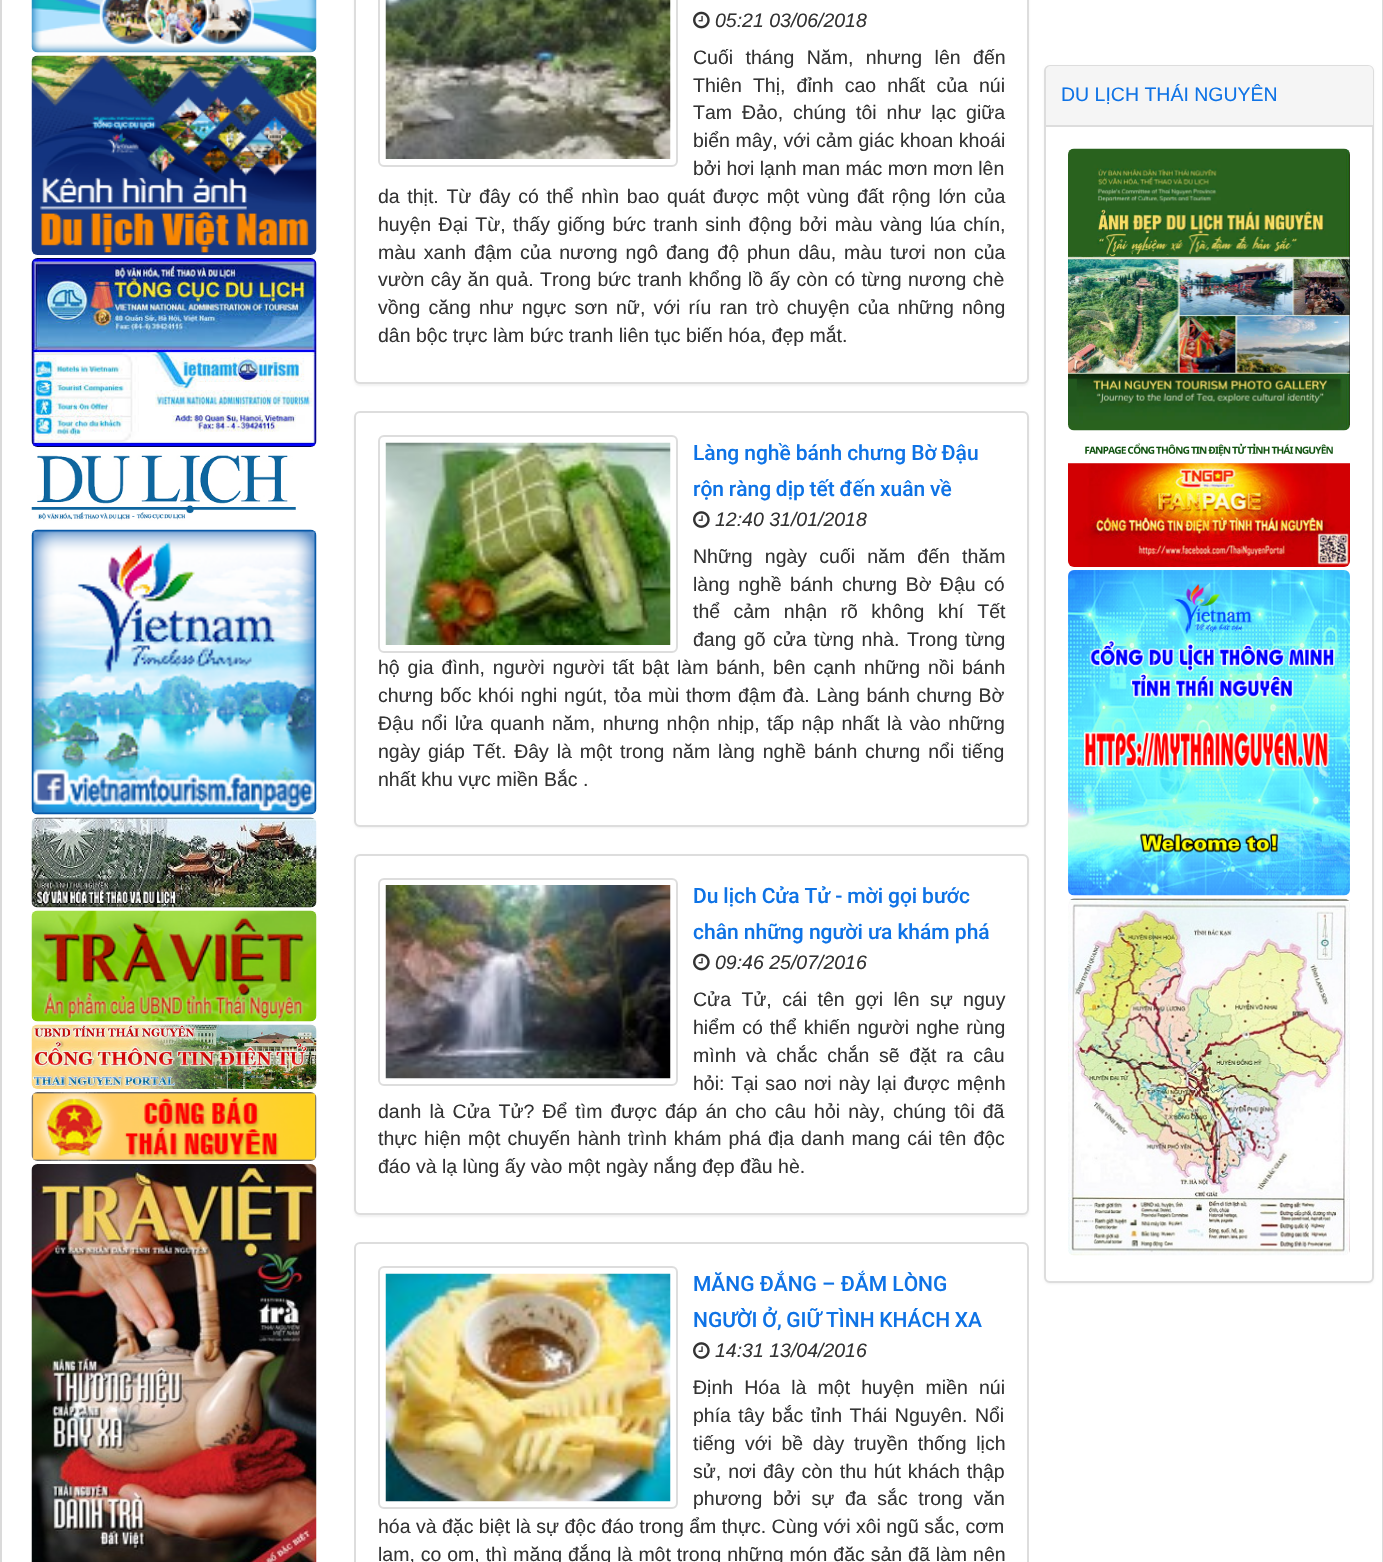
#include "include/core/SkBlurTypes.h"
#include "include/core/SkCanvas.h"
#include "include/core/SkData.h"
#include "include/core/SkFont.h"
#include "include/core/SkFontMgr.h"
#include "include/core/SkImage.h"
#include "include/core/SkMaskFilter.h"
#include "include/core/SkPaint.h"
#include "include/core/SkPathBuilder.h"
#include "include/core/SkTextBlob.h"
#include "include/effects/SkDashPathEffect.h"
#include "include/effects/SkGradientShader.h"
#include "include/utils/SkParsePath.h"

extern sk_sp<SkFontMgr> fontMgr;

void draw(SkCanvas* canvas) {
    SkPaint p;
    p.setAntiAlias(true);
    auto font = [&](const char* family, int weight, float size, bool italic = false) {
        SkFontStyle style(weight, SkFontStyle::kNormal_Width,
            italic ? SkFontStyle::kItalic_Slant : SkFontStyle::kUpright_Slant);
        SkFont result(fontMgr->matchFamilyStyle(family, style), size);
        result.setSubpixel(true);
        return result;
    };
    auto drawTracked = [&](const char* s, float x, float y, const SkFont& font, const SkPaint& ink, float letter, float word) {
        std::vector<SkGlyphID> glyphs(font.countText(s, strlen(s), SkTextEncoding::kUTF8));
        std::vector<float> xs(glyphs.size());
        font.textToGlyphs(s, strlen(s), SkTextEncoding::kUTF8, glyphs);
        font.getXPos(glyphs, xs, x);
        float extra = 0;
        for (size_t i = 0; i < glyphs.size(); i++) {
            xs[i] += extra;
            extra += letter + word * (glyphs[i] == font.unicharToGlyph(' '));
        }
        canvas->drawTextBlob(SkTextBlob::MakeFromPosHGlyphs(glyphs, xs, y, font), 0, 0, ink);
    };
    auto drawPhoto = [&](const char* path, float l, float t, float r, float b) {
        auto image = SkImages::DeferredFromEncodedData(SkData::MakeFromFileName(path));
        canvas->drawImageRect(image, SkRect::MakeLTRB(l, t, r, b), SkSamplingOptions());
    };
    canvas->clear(0xFFFFFFFF);
    p.setColor(0xFFDADADA);
    canvas->drawRect(SkRect::MakeLTRB(1382, 0, 1383, 1562), p);
    canvas->drawRect(SkRect::MakeLTRB(0, 0, 2, 1562), p);
    drawPhoto("media/1.png", 31, 0, 317, 53);
    drawPhoto("media/2.png", 31, 55, 317, 255);
    drawPhoto("media/3.png", 31, 258, 317, 447);
    drawPhoto("media/4.png", 31, 455, 296, 521);
    drawPhoto("media/5.png", 31, 529, 317, 815);
    drawPhoto("media/6.png", 31, 817, 317, 908);
    drawPhoto("media/7.png", 31, 910, 317, 1022);
    drawPhoto("media/8.png", 31, 1024, 317, 1089);
    drawPhoto("media/9.png", 31, 1092, 317, 1161);
    drawPhoto("media/10.png", 31, 1164, 317, 1562);
    p.setColor(0x0D000000);
    p.setMaskFilter(SkMaskFilter::MakeBlur(kNormal_SkBlurStyle, 1));
    canvas->drawRoundRect(SkRect::MakeLTRB(354, -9, 1029, 386), 6, 6, p);
    p.setMaskFilter(nullptr);
    p.setColor(0xFFFFFFFF);
    canvas->drawRoundRect(SkRect::MakeLTRB(355, -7, 1028, 383), 5, 5, p);
    p.setStyle(SkPaint::kStroke_Style);
    p.setStrokeWidth(2);
    p.setColor(0xFFDDDDDD);
    canvas->drawRoundRect(SkRect::MakeLTRB(355, -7, 1028, 383), 5, 5, p);
    canvas->drawRoundRect(SkRect::MakeLTRB(379, -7, 677, 166), 5, 5, p);
    drawPhoto("media/11.png", 385, 0, 671, 159);
    drawPhoto("media/12.png", 693, 11, 710, 29);
    auto font1 = font("Liberation Sans", 400, 19.5f, true);
    p.setStyle(SkPaint::kFill_Style);
    p.setColor(0xFF333333);
    canvas->drawString("05:21 03/06/2018", 715, 27, font1, p);
    auto font2 = font("Liberation Sans", 400, 19.5f);
    drawTracked("Cuối tháng Năm, nhưng lên đến", 693, 64, font2, p, 0, 7);
    drawTracked("Thiên Thị, đỉnh cao nhất của núi", 693, 92, font2, p, 0, 5.75f);
    drawTracked("Tam Đảo, chúng tôi như lạc giữa", 693, 119, font2, p, 0, 4.5f);
    drawTracked("biển mây, với cảm giác khoan khoái", 693, 147, font2, p, 0, 0.25f);
    canvas->drawString("bởi hơi lạnh man mác mơn mơn lên", 693, 175, font2, p);
    drawTracked("da thịt. Từ đây có thể nhìn bao quát được một vùng đất rộng lớn của", 378, 203, font2, p, 0, 2.25f);
    drawTracked("huyện Đại Từ, thấy giống bức tranh sinh động bởi màu vàng lúa chín,", 378, 231, font2, p, 0, 2);
    drawTracked("màu xanh đậm của nương ngô đang độ phun dâu, màu tươi non của", 378, 259, font2, p, 0, 2.5f);
    drawTracked("vườn cây ăn quả. Trong bức tranh khổng lồ ấy còn có từng nương chè", 378, 286, font2, p, 0, 1);
    drawTracked("vồng căng như ngực sơn nữ, với ríu ran trò chuyện của những nông", 378, 314, font2, p, 0, 2.75f);
    canvas->drawString("dân bộc trực làm bức tranh liên tục biến hóa, đẹp mắt.", 378, 342, font2, p);
    p.setColor(0x0D000000);
    p.setMaskFilter(SkMaskFilter::MakeBlur(kNormal_SkBlurStyle, 1));
    canvas->drawRoundRect(SkRect::MakeLTRB(354, 413, 1029, 828), 6, 6, p);
    p.setMaskFilter(nullptr);
    p.setColor(0xFFFFFFFF);
    canvas->drawRoundRect(SkRect::MakeLTRB(355, 412, 1028, 826), 5, 5, p);
    p.setStyle(SkPaint::kStroke_Style);
    p.setColor(0xFFDDDDDD);
    canvas->drawRoundRect(SkRect::MakeLTRB(355, 412, 1028, 826), 5, 5, p);
    canvas->drawRoundRect(SkRect::MakeLTRB(379, 436, 677, 652), 5, 5, p);
    drawPhoto("media/13.png", 385, 442, 671, 645);
    auto font3 = font("Roboto", 500, 21);
    p.setStyle(SkPaint::kFill_Style);
    p.setColor(0xFF0E73E6);
    drawTracked("Làng nghề bánh chưng Bờ Đậu", 693, 460, font3, p, 0, -0.25f);
    drawTracked("rộn ràng dịp tết đến xuân về", 693, 496, font3, p, 0, -0.5f);
    drawPhoto("media/14.png", 693, 511, 710, 528);
    p.setColor(0xFF333333);
    canvas->drawString("12:40 31/01/2018", 715, 526, font1, p);
    drawTracked("Những ngày cuối năm đến thăm", 693, 563, font2, p, 0, 6.75f);
    drawTracked("làng nghề bánh chưng Bờ Đậu có", 693, 591, font2, p, 0, 3);
    drawTracked("thể cảm nhận rõ không khí Tết", 693, 618, font2, p, 0, 8);
    drawTracked("đang gõ cửa từng nhà. Trong từng", 693, 646, font2, p, 0, 2);
    drawTracked("hộ gia đình, người người tất bật làm bánh, bên cạnh những nồi bánh", 378, 674, font2, p, 0, 2.5f);
    drawTracked("chưng bốc khói nghi ngút, tỏa mùi thơm đậm đà. Làng bánh chưng Bờ", 378, 702, font2, p, 0, 1.25f);
    drawTracked("Đậu nổi lửa quanh năm, nhưng nhộn nhịp, tấp nập nhất là vào những", 378, 730, font2, p, 0, 2);
    drawTracked("ngày giáp Tết. Đây là một trong năm làng nghề bánh chưng nổi tiếng", 378, 758, font2, p, 0, 2.4f);
    canvas->drawString("nhất khu vực miền Bắc .", 378, 786, font2, p);
    p.setColor(0x0D000000);
    p.setMaskFilter(SkMaskFilter::MakeBlur(kNormal_SkBlurStyle, 1));
    canvas->drawRoundRect(SkRect::MakeLTRB(354, 855, 1029, 1217), 6, 6, p);
    p.setMaskFilter(nullptr);
    p.setColor(0xFFFFFFFF);
    canvas->drawRoundRect(SkRect::MakeLTRB(355, 855, 1028, 1214), 5, 5, p);
    p.setStyle(SkPaint::kStroke_Style);
    p.setColor(0xFFDDDDDD);
    canvas->drawRoundRect(SkRect::MakeLTRB(355, 855, 1028, 1214), 5, 5, p);
    canvas->drawRoundRect(SkRect::MakeLTRB(379, 879, 677, 1085), 5, 5, p);
    drawPhoto("media/15.png", 385, 885, 671, 1079);
    p.setStyle(SkPaint::kFill_Style);
    p.setColor(0xFF0E73E6);
    drawTracked("Du lịch Cửa Tử - mời gọi bước", 693, 903, font3, p, 0, -0.25f);
    canvas->drawString("chân những người ưa khám phá", 693, 939, font3, p);
    drawPhoto("media/12.png", 693, 953, 710, 971);
    p.setColor(0xFF333333);
    canvas->drawString("09:46 25/07/2016", 715, 969, font1, p);
    drawTracked("Cửa Tử, cái tên gợi lên sự nguy", 693, 1006, font2, p, 0, 5);
    drawTracked("hiểm có thể khiến người nghe rùng", 693, 1034, font2, p, 0, 1.5f);
    drawTracked("mình và chắc chắn sẽ đặt ra câu", 693, 1062, font2, p, 0, 4.25f);
    drawTracked("hỏi: Tại sao nơi này lại được mệnh", 693, 1090, font2, p, 0, 1.5f);
    drawTracked("danh là Cửa Tử? Để tìm được đáp án cho câu hỏi này, chúng tôi đã", 378, 1118, font2, p, 0, 2.6f);
    drawTracked("thực hiện một chuyến hành trình khám phá địa danh mang cái tên độc", 378, 1145, font2, p, 0, 1.6f);
    canvas->drawString("đáo và lạ lùng ấy vào một ngày nắng đẹp đầu hè.", 378, 1173, font2, p);
    p.setStyle(SkPaint::kStroke_Style);
    p.setColor(0xFFDDDDDD);
    canvas->drawRoundRect(SkRect::MakeLTRB(355, 1243, 1028, 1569), 5, 5, p);
    canvas->drawRoundRect(SkRect::MakeLTRB(379, 1267, 677, 1508), 5, 5, p);
    drawPhoto("media/16.png", 385, 1273, 671, 1502);
    p.setStyle(SkPaint::kFill_Style);
    p.setColor(0xFF0E73E6);
    canvas->drawString("MĂNG ĐẮNG – ĐẮM LÒNG", 693, 1291, font3, p);
    drawTracked("NGƯỜI Ở, GIỮ TÌNH KHÁCH XA", 693, 1327, font3, p, 0, -0.5f);
    drawPhoto("media/14.png", 693, 1342, 710, 1359);
    p.setColor(0xFF333333);
    canvas->drawString("14:31 13/04/2016", 715, 1357, font1, p);
    drawTracked("Định Hóa là một huyện miền núi", 693, 1394, font2, p, 0, 5.75f);
    drawTracked("phía tây bắc tỉnh Thái Nguyên. Nổi", 693, 1422, font2, p, 0, 2);
    drawTracked("tiếng với bề dày truyền thống lịch", 693, 1450, font2, p, 0, 4.25f);
    drawTracked("sử, nơi đây còn thu hút khách thập", 693, 1478, font2, p, 0, 1.5f);
    drawTracked("phương bởi sự đa sắc trong văn", 693, 1505, font2, p, 0, 5.25f);
    canvas->drawString("hóa và đặc biệt là sự độc đáo trong ẩm thực. Cùng với xôi ngũ sắc, cơm", 378, 1533, font2, p);
    drawTracked("lam, cọ om, thì măng đắng là một trong những món đặc sản đã làm nên", 378, 1561, font2, p, 0, 0.5f);
    p.setColor(0x0D000000);
    p.setMaskFilter(SkMaskFilter::MakeBlur(kNormal_SkBlurStyle, 1));
    canvas->drawRoundRect(SkRect::MakeLTRB(1044, 66, 1374, 1284), 6, 6, p);
    p.setMaskFilter(nullptr);
    p.setColor(0xFFFFFFFF);
    canvas->drawRoundRect(SkRect::MakeLTRB(1045, 66, 1373, 1282), 5, 5, p);
    p.setStyle(SkPaint::kStroke_Style);
    p.setColor(0xFFDDDDDD);
    canvas->drawRoundRect(SkRect::MakeLTRB(1045, 66, 1373, 1282), 5, 5, p);
    p.setStyle(SkPaint::kFill_Style);
    p.setColor(0xFFF5F5F5);
    canvas->drawPath(SkPathBuilder().moveTo(1051, 66).lineTo(1368, 66).cubicTo(1371, 66, 1373, 68, 1373, 71).lineTo(1373, 126).lineTo(1046, 126).lineTo(1046, 71).cubicTo(1046, 68, 1048, 66, 1051, 66).close().detach(), p);
    p.setColor(0xFFDDDDDD);
    canvas->drawRect(SkRect::MakeLTRB(1046, 125, 1373, 127), p);
    p.setColor(0xFF0E73E6);
    canvas->drawString("DU LỊCH THÁI NGUYÊN", 1061, 101, font2, p);
    drawPhoto("media/17.png", 1068, 148, 1350, 431);
    drawPhoto("media/18.png", 1068, 443, 1350, 567);
    drawPhoto("media/19.png", 1068, 570, 1350, 896);
    drawPhoto("media/20.png", 1068, 898, 1350, 1256);
}
